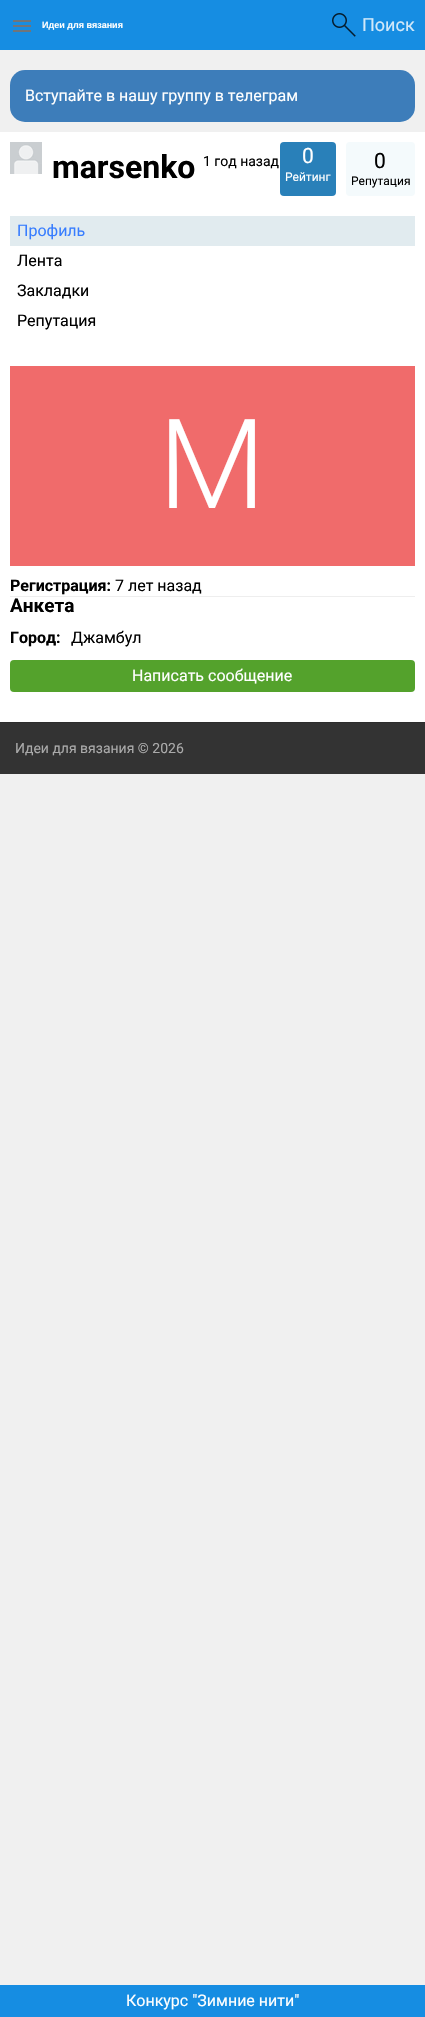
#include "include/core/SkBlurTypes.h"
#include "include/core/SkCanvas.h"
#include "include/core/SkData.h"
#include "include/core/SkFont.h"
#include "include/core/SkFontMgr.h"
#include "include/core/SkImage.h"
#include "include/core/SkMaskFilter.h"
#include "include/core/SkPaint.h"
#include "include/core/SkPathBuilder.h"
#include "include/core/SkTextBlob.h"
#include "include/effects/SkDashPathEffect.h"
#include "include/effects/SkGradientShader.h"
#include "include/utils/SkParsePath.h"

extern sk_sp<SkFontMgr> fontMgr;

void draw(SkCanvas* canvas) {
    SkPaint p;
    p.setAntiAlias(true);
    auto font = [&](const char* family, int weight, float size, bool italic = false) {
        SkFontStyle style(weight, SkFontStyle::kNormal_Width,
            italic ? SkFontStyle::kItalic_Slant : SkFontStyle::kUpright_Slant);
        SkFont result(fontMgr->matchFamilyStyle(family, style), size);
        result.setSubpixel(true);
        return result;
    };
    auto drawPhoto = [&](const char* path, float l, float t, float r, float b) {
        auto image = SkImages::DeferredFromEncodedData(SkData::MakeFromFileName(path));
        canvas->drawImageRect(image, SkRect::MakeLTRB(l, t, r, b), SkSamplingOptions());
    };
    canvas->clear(0xFFF0F0F0);
    p.setColor(0xFF168DE2);
    canvas->drawRect(SkRect::MakeLTRB(0, 0, 425, 50), p);
    drawPhoto("media/1.png", 13, 20, 31, 32);
    auto font1 = font("Liberation Sans", 700, 9);
    p.setColor(0xFFFFFFFF);
    canvas->drawString("Идеи для вязания", 42, 28, font1, p);
    drawPhoto("media/2.png", 332, 13, 356, 37);
    auto font2 = font("Roboto", 400, 18);
    p.setColor(0xFFD0E8F9);
    canvas->drawString("Поиск", 362, 31, font2, p);
    p.setColor(0xFF3D7DBA);
    canvas->drawRoundRect(SkRect::MakeLTRB(10, 70, 415, 122), 15, 15, p);
    auto font3 = font("Roboto", 400, 16);
    p.setColor(0xFFFFFFFF);
    canvas->drawString("Вступайте в нашу группу в телеграм", 25, 101, font3, p);
    canvas->drawRect(SkRect::MakeLTRB(0, 132, 425, 722), p);
    drawPhoto("media/3.png", 10, 142, 42, 174);
    auto font4 = font("Roboto", 700, 32);
    p.setColor(0xFF000000);
    canvas->drawString("marsenko", 52, 178, font4, p);
    auto font5 = font("Roboto", 400, 14);
    canvas->drawString("1 год назад", 203, 166, font5, p);
    p.setColor(0xFF2980B9);
    canvas->drawRoundRect(SkRect::MakeLTRB(280, 142, 336, 196), 4, 4, p);
    auto font6 = font("Roboto", 400, 21);
    p.setColor(0xFFFFFFFF);
    canvas->drawString("0", 302, 163, font6, p);
    auto font7 = font("Roboto", 400, 12);
    canvas->drawString("Рейтинг", 285, 181, font7, p);
    p.setColor(0xFFF4FAFC);
    canvas->drawRoundRect(SkRect::MakeLTRB(346, 142, 415, 196), 4, 4, p);
    p.setColor(0xFF000000);
    canvas->drawString("0", 374, 168, font6, p);
    canvas->drawString("Репутация", 351, 185, font7, p);
    p.setColor(0xFFE1EBEF);
    canvas->drawRect(SkRect::MakeLTRB(10, 216, 415, 246), p);
    p.setColor(0xFF377DFF);
    canvas->drawString("Профиль", 17, 236, font3, p);
    p.setColor(0xFF000000);
    {
        const struct { const char* s; float x, y; } items[] = {
            {"Лента", 17, 266},
            {"Закладки", 17, 296},
            {"Репутация", 17, 326},
        };
        for (auto [s, x, y] : items) {
            canvas->drawString(s, x, y, font3, p);
        }
    }
    p.setColor(0xFFF06B6B);
    canvas->drawRect(SkRect::MakeLTRB(10, 366, 415, 566), p);
    auto font8 = font("Roboto", 300, 125);
    p.setColor(0xFFFFFFFF);
    canvas->drawString("M", 158, 508, font8, p);
    auto font9 = font("Roboto", 700, 16);
    p.setColor(0xFF000000);
    canvas->drawString("Регистрация:", 10, 591, font9, p);
    canvas->drawString("7 лет назад", 115, 591, font3, p);
    p.setColor(0xFFEEEEEE);
    canvas->drawRect(SkRect::MakeLTRB(10, 596, 415, 597), p);
    auto font10 = font("Roboto", 700, 19);
    p.setColor(0xFF000000);
    canvas->drawString("Анкета", 10, 612, font10, p);
    canvas->drawString("Город:", 10, 643, font9, p);
    canvas->drawString("Джамбул", 71, 643, font3, p);
    p.setColor(0xFF54A22C);
    canvas->drawRoundRect(SkRect::MakeLTRB(10, 660, 415, 692), 4, 4, p);
    p.setColor(0xFFFFFFFF);
    canvas->drawString("Написать сообщение", 132, 681, font3, p);
    p.setColor(0xFF168DE2);
    canvas->drawRect(SkRect::MakeLTRB(0, 1985, 425, 2017), p);
    p.setColor(0xFFFFFFFF);
    canvas->drawString("Конкурс \"Зимние нити\"", 126, 2006, font3, p);
    p.setColor(0xFF333333);
    canvas->drawRect(SkRect::MakeLTRB(0, 723, 425, 774), p);
    p.setColor(0xFF2D2D2D);
    canvas->drawRect(SkRect::MakeLTRB(0, 722, 425, 723), p);
    p.setColor(0xFFAAAAAA);
    canvas->drawString("Идеи для вязания © 2026", 15, 753, font5, p);
}
